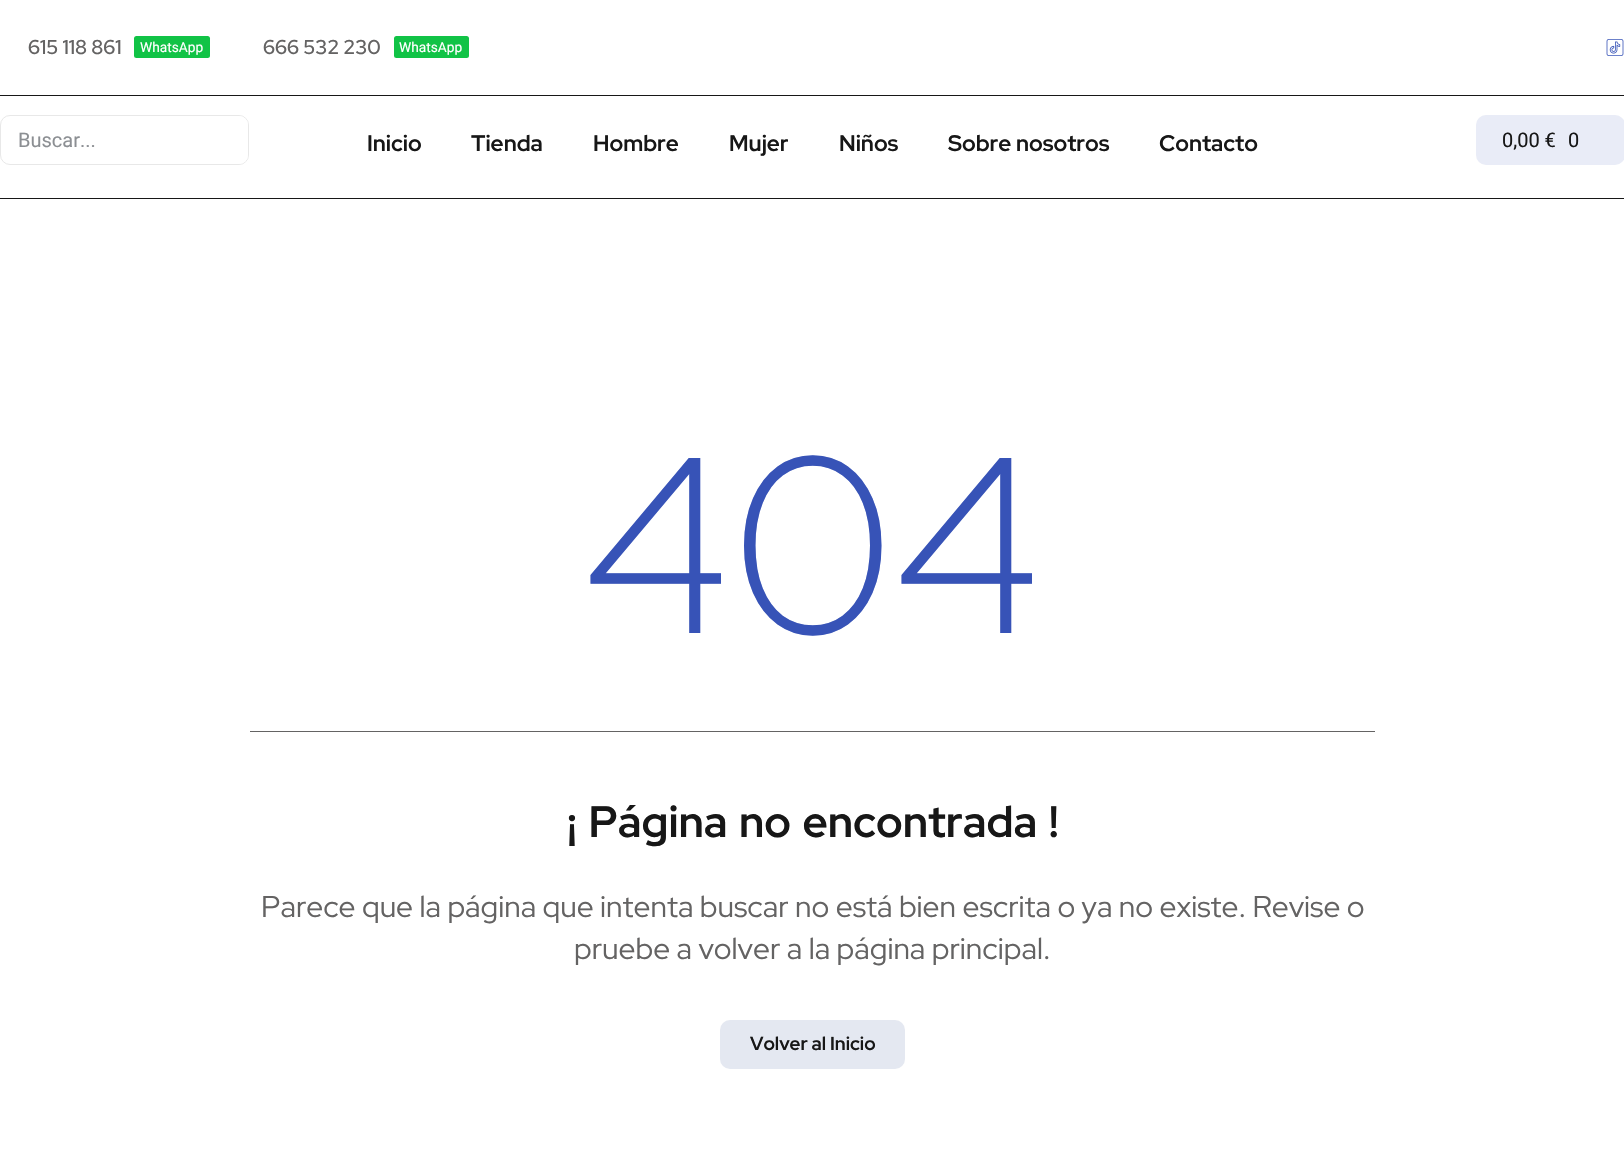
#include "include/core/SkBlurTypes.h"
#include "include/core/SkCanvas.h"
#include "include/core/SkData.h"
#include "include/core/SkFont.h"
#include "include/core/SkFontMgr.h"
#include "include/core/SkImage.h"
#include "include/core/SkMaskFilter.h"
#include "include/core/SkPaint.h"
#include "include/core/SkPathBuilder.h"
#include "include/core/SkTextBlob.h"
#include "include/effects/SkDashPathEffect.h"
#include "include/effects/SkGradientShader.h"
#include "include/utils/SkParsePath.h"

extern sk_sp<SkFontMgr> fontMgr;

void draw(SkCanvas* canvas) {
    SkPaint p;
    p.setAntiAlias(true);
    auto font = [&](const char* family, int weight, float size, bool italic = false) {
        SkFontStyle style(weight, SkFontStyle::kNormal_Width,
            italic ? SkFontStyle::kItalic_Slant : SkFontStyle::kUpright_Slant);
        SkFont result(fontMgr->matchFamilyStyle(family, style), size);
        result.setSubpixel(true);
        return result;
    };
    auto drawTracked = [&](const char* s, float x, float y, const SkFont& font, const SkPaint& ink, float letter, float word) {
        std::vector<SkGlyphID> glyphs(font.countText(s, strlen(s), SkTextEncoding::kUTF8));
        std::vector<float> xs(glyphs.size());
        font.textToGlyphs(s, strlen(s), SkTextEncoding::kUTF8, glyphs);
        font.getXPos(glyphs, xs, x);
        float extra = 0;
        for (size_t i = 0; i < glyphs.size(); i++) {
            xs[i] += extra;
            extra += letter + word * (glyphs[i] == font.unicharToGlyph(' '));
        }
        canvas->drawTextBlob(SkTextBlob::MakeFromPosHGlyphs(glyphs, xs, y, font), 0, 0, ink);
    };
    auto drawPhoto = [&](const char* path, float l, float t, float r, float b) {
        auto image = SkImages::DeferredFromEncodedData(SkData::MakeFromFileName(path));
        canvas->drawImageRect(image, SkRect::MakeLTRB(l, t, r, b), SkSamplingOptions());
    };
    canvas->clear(0xFFFFFFFF);
    auto font1 = font("Red Hat Display", 600, 20);
    p.setColor(0xFF646363);
    canvas->drawString("615 118 861", 28, 54, font1, p);
    p.setColor(0xFF11C346);
    canvas->drawRoundRect(SkRect::MakeLTRB(134, 36, 210, 58), 2.5f, 2.5f, p);
    auto font2 = font("Roboto", 400, 13.75f);
    p.setColor(0xFFFFFFFF);
    canvas->drawString("WhatsApp", 140, 52, font2, p);
    p.setColor(0xFF646363);
    canvas->drawString("666 532 230", 263, 54, font1, p);
    p.setColor(0xFF11C346);
    canvas->drawRoundRect(SkRect::MakeLTRB(394, 36, 469, 58), 2.5f, 2.5f, p);
    p.setColor(0xFFFFFFFF);
    canvas->drawString("WhatsApp", 399, 52, font2, p);
    drawPhoto("media/1.png", 1606, 39, 1624, 56);
    p.setColor(0xFF171717);
    canvas->drawRect(SkRect::MakeLTRB(0, 95, 1624, 96), p);
    canvas->drawRect(SkRect::MakeLTRB(0, 198, 1624, 199), p);
    p.setStyle(SkPaint::kStroke_Style);
    p.setStrokeWidth(1);
    p.setColor(0xFFE8E8E8);
    canvas->drawRoundRect(SkRect::MakeLTRB(0.5f, 115.5f, 248.5f, 164.5f), 9.5f, 9.5f, p);
    auto font3 = font("Roboto", 400, 20);
    p.setStyle(SkPaint::kFill_Style);
    p.setColor(0xFF8C8F93);
    canvas->drawString("Buscar...", 18, 147, font3, p);
    p.setColor(0xFFFFFFFF);
    canvas->drawPath(SkPathBuilder().moveTo(185, 116).lineTo(239, 116).cubicTo(244, 116, 248, 120, 248, 125).lineTo(248, 155).cubicTo(248, 160, 244, 164, 239, 164).lineTo(185, 164).close().detach(), p);
    auto font4 = font("Red Hat Display", 700, 22.5f);
    p.setColor(0xFF171717);
    {
        const struct { const char* s; float x, y; } items[] = {
            {"Inicio", 367, 151},
            {"Tienda", 471, 151},
            {"Hombre", 593, 151},
            {"Mujer", 729, 151},
            {"Niños", 839, 151},
            {"Sobre nosotros", 948, 151},
            {"Contacto", 1159, 151},
        };
        for (auto [s, x, y] : items) {
            canvas->drawString(s, x, y, font4, p);
        }
    }
    p.setColor(0xFFE9ECF7);
    canvas->drawRoundRect(SkRect::MakeLTRB(1476, 115, 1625, 165), 10, 10, p);
    p.setColor(0xFF171717);
    canvas->drawString("0,00 €", 1502, 147, font3, p);
    canvas->drawString("0", 1568, 147, font3, p);
    p.setColor(0xFF646363);
    canvas->drawRect(SkRect::MakeLTRB(250, 731, 1375, 732), p);
    auto font5 = font("Red Hat Display", 300, 250);
    p.setColor(0xFF3753B7);
    canvas->drawString("404", 583, 633, font5, p);
    auto font6 = font("Red Hat Display", 700, 43.75f);
    p.setColor(0xFF171717);
    drawTracked("¡ Página no encontrada !", 567, 837, font6, p, 0, 2.5f);
    auto font7 = font("Red Hat Display", 400, 30);
    p.setColor(0xFF646363);
    canvas->drawString("Parece que la página que intenta buscar no está bien escrita o ya no existe. Revise o", 261, 917, font7, p);
    canvas->drawString("pruebe a volver a la página principal.", 574, 959, font7, p);
    p.setColor(0xFFE4E8F1);
    canvas->drawRoundRect(SkRect::MakeLTRB(720, 1020, 905, 1069), 10, 10, p);
    auto font8 = font("Red Hat Display", 700, 18.75f);
    p.setColor(0xFF171717);
    canvas->drawString("Volver al Inicio", 750, 1050, font8, p);
}
